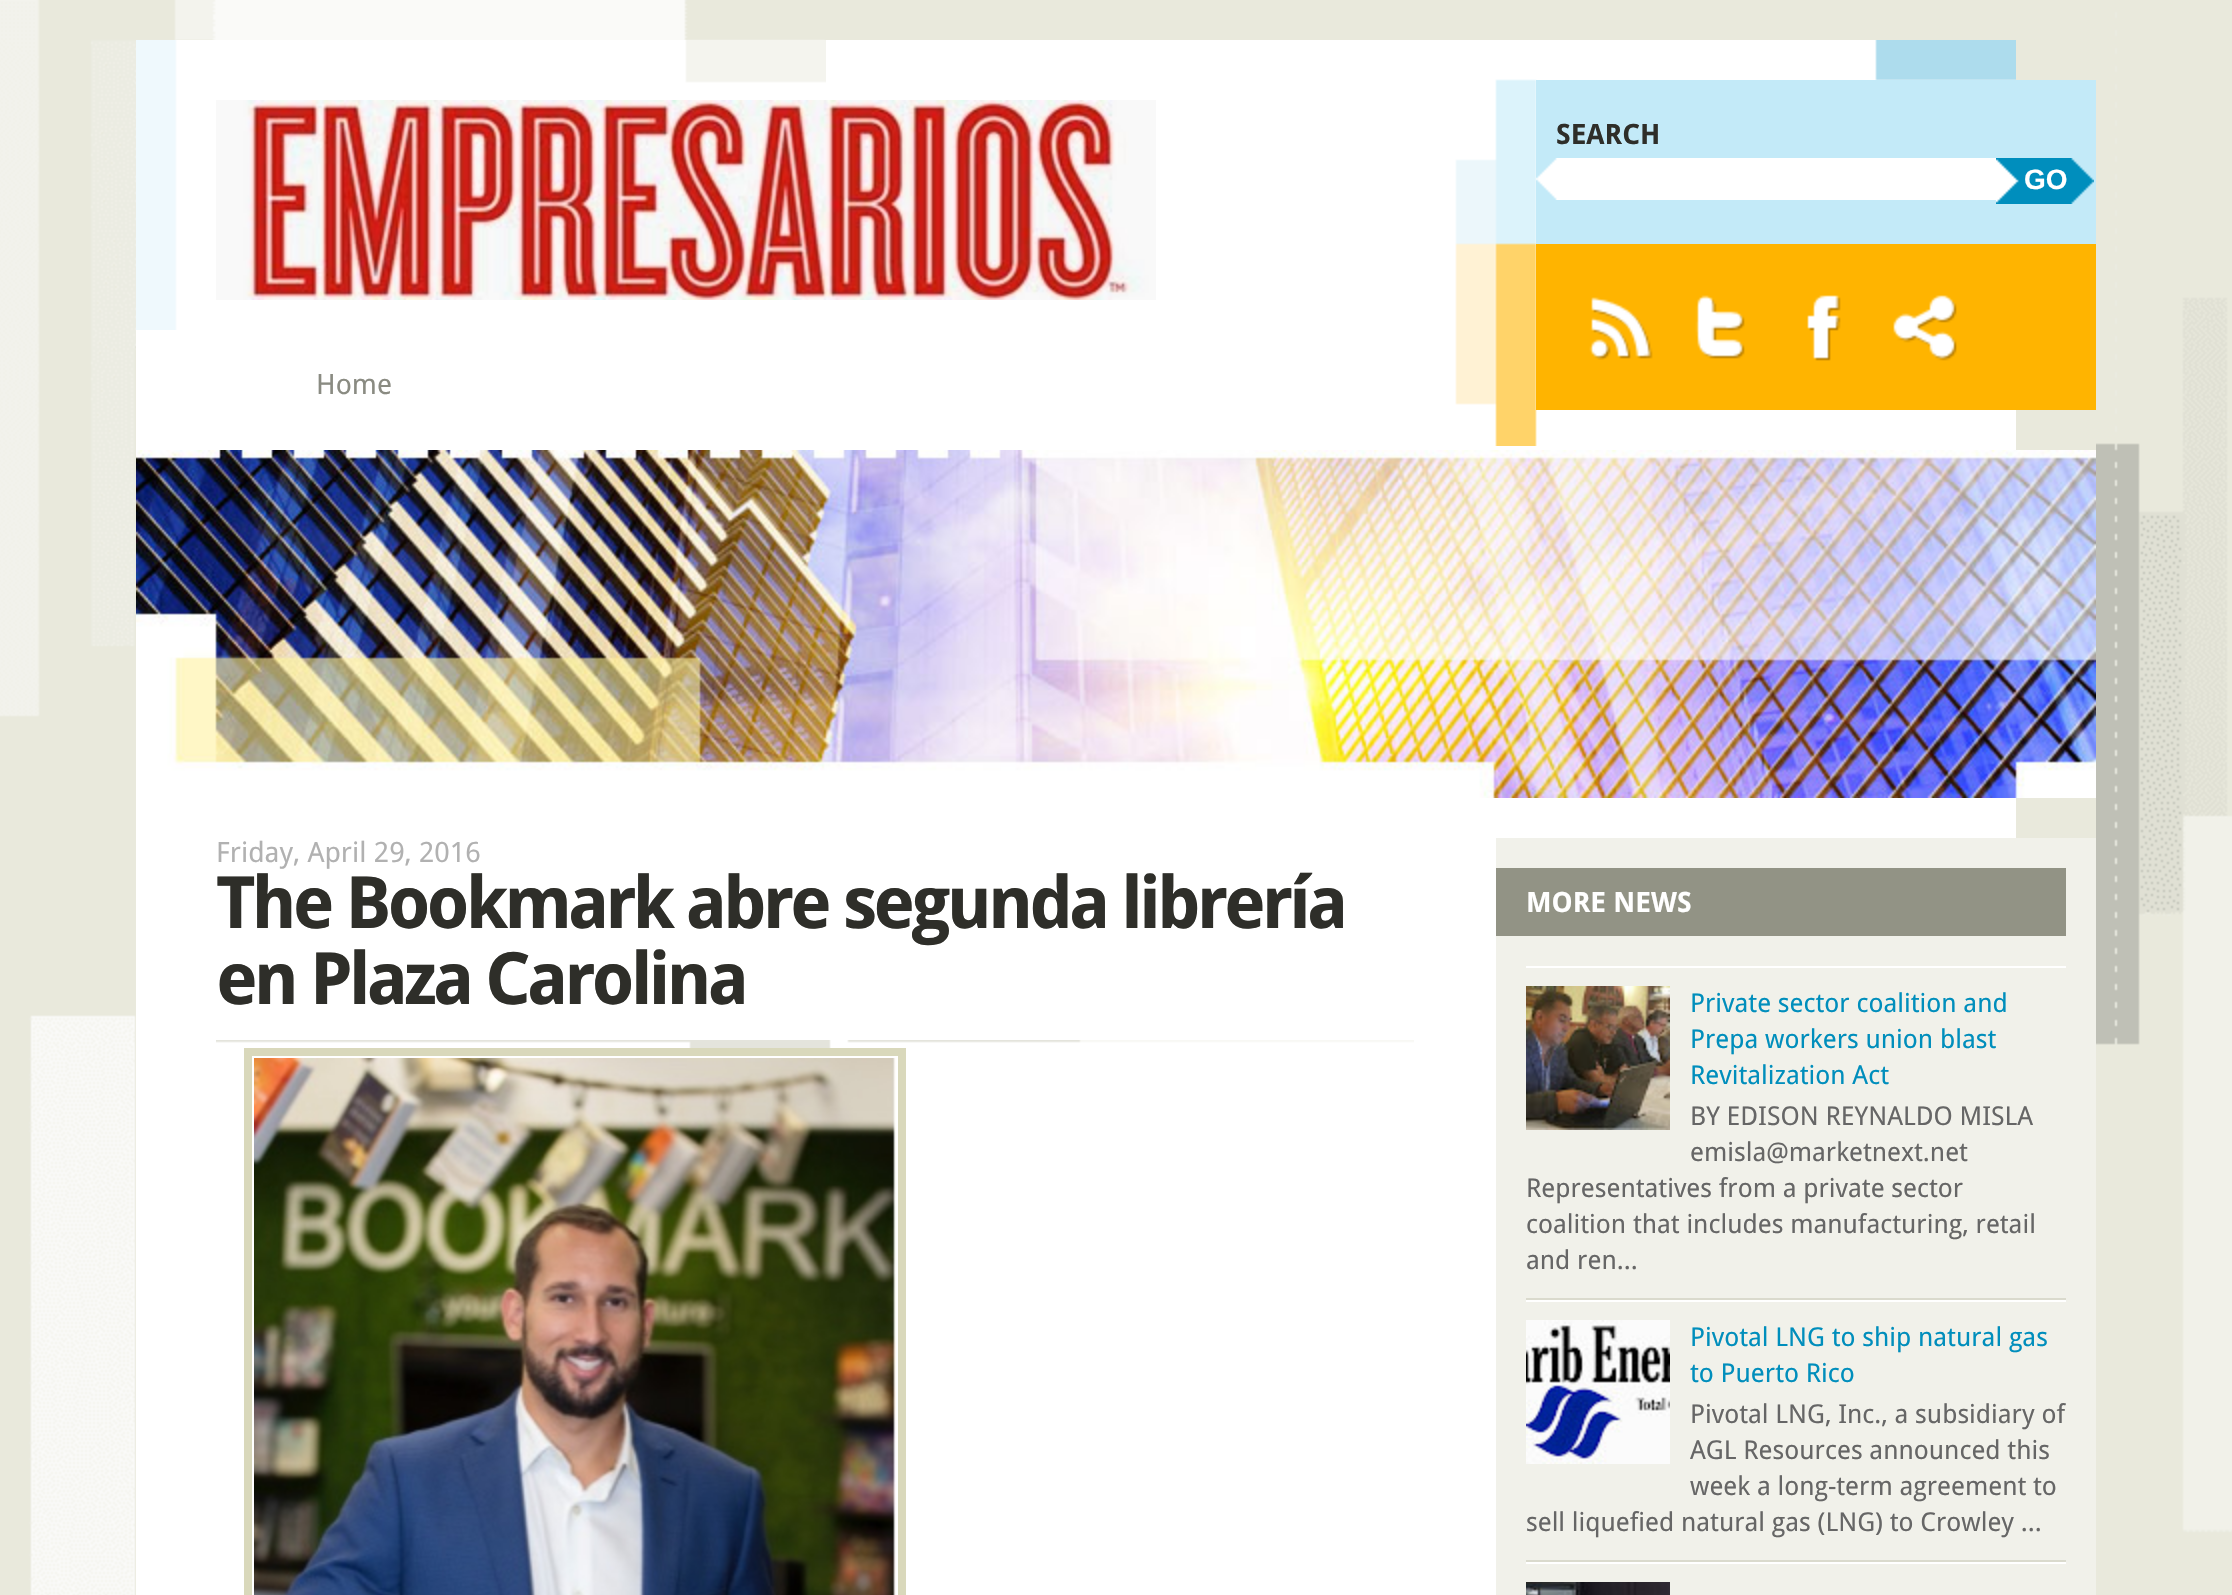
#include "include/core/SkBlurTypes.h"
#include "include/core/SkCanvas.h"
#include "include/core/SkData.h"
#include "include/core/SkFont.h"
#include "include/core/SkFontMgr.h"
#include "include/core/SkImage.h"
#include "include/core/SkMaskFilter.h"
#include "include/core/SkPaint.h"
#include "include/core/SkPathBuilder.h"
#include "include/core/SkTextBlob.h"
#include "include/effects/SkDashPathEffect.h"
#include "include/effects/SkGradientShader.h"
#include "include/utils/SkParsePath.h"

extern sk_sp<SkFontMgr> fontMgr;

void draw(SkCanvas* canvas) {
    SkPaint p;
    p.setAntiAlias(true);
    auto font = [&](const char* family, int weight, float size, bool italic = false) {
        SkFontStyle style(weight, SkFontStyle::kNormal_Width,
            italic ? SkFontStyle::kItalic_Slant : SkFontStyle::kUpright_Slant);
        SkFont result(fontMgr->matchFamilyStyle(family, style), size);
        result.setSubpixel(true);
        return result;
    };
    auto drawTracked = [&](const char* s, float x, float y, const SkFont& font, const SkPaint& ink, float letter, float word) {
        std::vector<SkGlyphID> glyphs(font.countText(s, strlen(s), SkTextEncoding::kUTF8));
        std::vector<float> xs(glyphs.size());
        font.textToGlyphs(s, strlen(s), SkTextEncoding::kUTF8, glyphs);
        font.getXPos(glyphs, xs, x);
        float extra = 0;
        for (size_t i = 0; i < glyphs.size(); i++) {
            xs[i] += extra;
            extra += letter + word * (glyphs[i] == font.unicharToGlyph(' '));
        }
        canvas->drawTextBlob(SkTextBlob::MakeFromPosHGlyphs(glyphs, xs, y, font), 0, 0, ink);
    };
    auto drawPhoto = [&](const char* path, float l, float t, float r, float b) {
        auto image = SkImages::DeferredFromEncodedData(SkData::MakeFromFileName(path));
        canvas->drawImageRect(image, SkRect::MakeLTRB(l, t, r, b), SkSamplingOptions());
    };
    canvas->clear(0xFFFFFFFF);
    drawPhoto("media/1.png", 0, 0, 2232, 1595);
    p.setColor(0xFFFFFFFF);
    canvas->drawRect(SkRect::MakeLTRB(136, 40, 2016, 1595), p);
    p.setColor(0xFFE9E9DC);
    canvas->drawRect(SkRect::MakeLTRB(2094, 443, 2096, 838), p);
    drawPhoto("media/2.png", 1455, 40, 2016, 446);
    p.setColor(0xFFC3EAF8);
    canvas->drawRect(SkRect::MakeLTRB(1536, 80, 2096, 244), p);
    auto font1 = font("Droid Sans", 700, 28);
    p.setColor(0xFF2E2E29);
    canvas->drawString("SEARCH", 1556, 144, font1, p);
    p.setColor(0xFFFFFFFF);
    canvas->drawRect(SkRect::MakeLTRB(1557, 158, 1996, 200), p);
    drawPhoto("media/3.png", 1536, 158, 1557, 200);
    drawPhoto("media/4.png", 1996, 158, 2094, 204);
    auto font2 = font("Liberation Sans", 700, 28);
    canvas->drawString("GO", 2024, 189, font2, p);
    p.setColor(0xFFFFB400);
    canvas->drawRect(SkRect::MakeLTRB(1536, 244, 2096, 410), p);
    drawPhoto("media/5.png", 1589, 297, 1653, 360);
    drawPhoto("media/6.png", 1695, 295, 1745, 359);
    drawPhoto("media/7.png", 1807, 295, 1841, 361);
    drawPhoto("media/8.png", 1893, 295, 1957, 361);
    drawPhoto("media/9.png", 136, 40, 826, 330);
    drawPhoto("media/10.png", 216, 100, 1156, 300);
    auto font3 = font("Droid Sans", 400, 28);
    p.setColor(0xFF8A8B82);
    canvas->drawString("Home", 316, 394, font3, p);
    drawPhoto("media/11.png", 136, 450, 2096, 798);
    p.setColor(0xFFB1B1B1);
    canvas->drawString("Friday, April 29, 2016", 216, 862, font3, p);
    drawPhoto("media/12.png", 216, 1040, 1414, 1048);
    auto font4 = font("Droid Sans", 700, 72);
    p.setColor(0xFF2E2E29);
    drawTracked("The Bookmark abre segunda librería", 216, 928, font4, p, -4, 0);
    drawTracked("en Plaza Carolina", 216, 1004, font4, p, -4, 0);
    p.setStyle(SkPaint::kStroke_Style);
    p.setStrokeWidth(8);
    p.setColor(0xFFD9D8BB);
    canvas->drawRect(SkRect::MakeLTRB(248, 1052, 902, 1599), p);
    drawPhoto("media/13.png", 254, 1058, 896, 1595);
    p.setStyle(SkPaint::kFill_Style);
    p.setColor(0xFFF1F1EA);
    canvas->drawRect(SkRect::MakeLTRB(1496, 838, 2096, 1595), p);
    p.setColor(0xFF929385);
    canvas->drawRect(SkRect::MakeLTRB(1496, 868, 2066, 936), p);
    p.setColor(0xFFFFFFFF);
    canvas->drawString("MORE NEWS", 1526, 912, font1, p);
    canvas->drawRect(SkRect::MakeLTRB(1526, 966, 2066, 968), p);
    p.setColor(0xFFDADACD);
    canvas->drawRect(SkRect::MakeLTRB(1526, 1298, 2066, 1300), p);
    drawPhoto("media/14.png", 1526, 986, 1670, 1130);
    auto font5 = font("Droid Sans", 400, 26);
    p.setColor(0xFF008EBC);
    {
        const struct { const char* s; float x, y; } items[] = {
            {"Private sector coalition and", 1690, 1012},
            {"Prepa workers union blast", 1690, 1048},
            {"Revitalization Act", 1690, 1084},
        };
        for (auto [s, x, y] : items) {
            canvas->drawString(s, x, y, font5, p);
        }
    }
    p.setColor(0xFF666666);
    {
        const struct { const char* s; float x, y; } items[] = {
            {"BY EDISON REYNALDO MISLA", 1690, 1125},
            {"emisla@marketnext.net", 1690, 1161},
            {"Representatives from a private sector", 1526, 1197},
            {"coalition that includes manufacturing, retail", 1526, 1233},
            {"and ren...", 1526, 1269},
        };
        for (auto [s, x, y] : items) {
            canvas->drawString(s, x, y, font5, p);
        }
    }
    p.setColor(0xFFFFFFFF);
    canvas->drawRect(SkRect::MakeLTRB(1526, 1300, 2066, 1302), p);
    p.setColor(0xFFDADACD);
    canvas->drawRect(SkRect::MakeLTRB(1526, 1560, 2066, 1562), p);
    drawPhoto("media/15.png", 1526, 1320, 1670, 1464);
    p.setColor(0xFF008EBC);
    canvas->drawString("Pivotal LNG to ship natural gas", 1690, 1346, font5, p);
    canvas->drawString("to Puerto Rico", 1690, 1382, font5, p);
    p.setColor(0xFF666666);
    {
        const struct { const char* s; float x, y; } items[] = {
            {"Pivotal LNG, Inc., a subsidiary of", 1690, 1423},
            {"AGL Resources announced this", 1690, 1459},
            {"week a long-term agreement to", 1690, 1495},
            {"sell liquefied natural gas (LNG) to Crowley ...", 1526, 1531},
        };
        for (auto [s, x, y] : items) {
            canvas->drawString(s, x, y, font5, p);
        }
    }
    p.setColor(0xFFFFFFFF);
    canvas->drawRect(SkRect::MakeLTRB(1526, 1562, 2066, 1564), p);
    drawPhoto("media/16.png", 1526, 1582, 1670, 1595);
}
